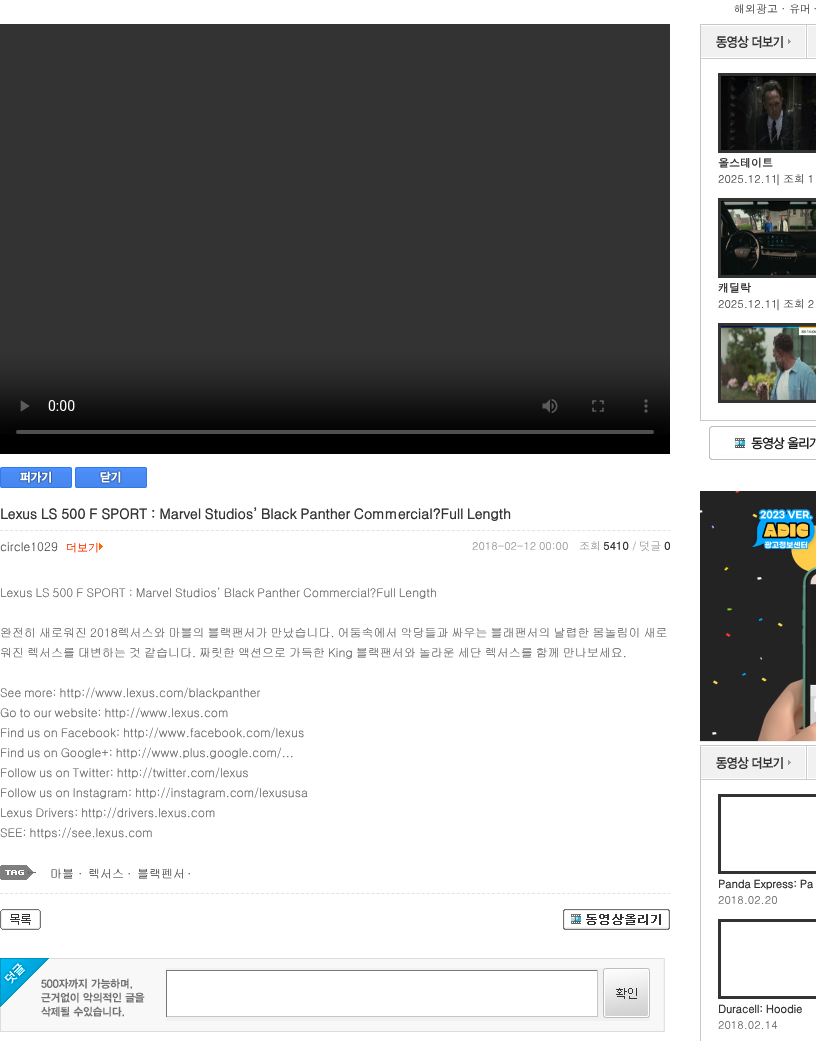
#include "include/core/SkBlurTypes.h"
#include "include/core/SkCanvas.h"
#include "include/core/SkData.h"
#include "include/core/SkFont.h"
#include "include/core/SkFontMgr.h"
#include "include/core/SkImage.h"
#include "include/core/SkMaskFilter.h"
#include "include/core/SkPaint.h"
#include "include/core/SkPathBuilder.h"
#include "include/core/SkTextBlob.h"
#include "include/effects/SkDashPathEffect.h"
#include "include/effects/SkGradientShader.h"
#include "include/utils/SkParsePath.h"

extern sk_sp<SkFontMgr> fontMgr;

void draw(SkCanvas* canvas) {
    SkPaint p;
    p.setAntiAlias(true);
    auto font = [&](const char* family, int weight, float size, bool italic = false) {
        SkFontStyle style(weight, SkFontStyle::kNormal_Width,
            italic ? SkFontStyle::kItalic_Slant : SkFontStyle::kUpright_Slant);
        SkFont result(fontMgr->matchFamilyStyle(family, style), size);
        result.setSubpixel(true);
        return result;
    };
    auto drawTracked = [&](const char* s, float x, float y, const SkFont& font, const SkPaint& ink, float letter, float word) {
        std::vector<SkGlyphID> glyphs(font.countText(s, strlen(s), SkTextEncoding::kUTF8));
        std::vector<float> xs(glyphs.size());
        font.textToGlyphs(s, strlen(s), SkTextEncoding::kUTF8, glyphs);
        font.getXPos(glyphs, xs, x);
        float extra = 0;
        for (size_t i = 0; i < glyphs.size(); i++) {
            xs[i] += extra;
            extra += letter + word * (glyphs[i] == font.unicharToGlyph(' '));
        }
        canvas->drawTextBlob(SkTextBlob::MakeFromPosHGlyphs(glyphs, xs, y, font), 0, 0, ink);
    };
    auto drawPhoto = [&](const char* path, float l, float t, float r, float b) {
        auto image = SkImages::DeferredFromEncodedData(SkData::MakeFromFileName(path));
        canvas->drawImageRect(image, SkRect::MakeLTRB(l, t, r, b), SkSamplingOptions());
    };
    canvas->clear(0xFFFFFFFF);
    auto font1 = font("Dotum", 400, 11);
    p.setColor(0xFF474747);
    canvas->drawString("해외광고", 734, 13, font1, p);
    auto font2 = font("Gulim", 400, 12);
    canvas->drawString("·", 781, 13, font2, p);
    canvas->drawString("유머", 789, 13, font1, p);
    canvas->drawString("·", 813, 13, font2, p);
    p.setColor(0xFF000000);
    canvas->drawRect(SkRect::MakeLTRB(0, 434, 670, 454), p);
    drawPhoto("media/1.png", 0, 24, 670, 434);
    p.setStyle(SkPaint::kStroke_Style);
    p.setStrokeWidth(1);
    p.setColor(0xFFC8C8C8);
    canvas->drawRect(SkRect::MakeLTRB(700.5f, 24.5f, 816.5f, 420.5f), p);
    drawPhoto("media/2.png", 701, 25, 807, 59);
    drawPhoto("media/3.png", 807, 26, 816, 59);
    p.setStrokeWidth(3);
    p.setColor(0xFF333333);
    canvas->drawRect(SkRect::MakeLTRB(719.5f, 74.5f, 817.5f, 151.5f), p);
    drawPhoto("media/4.png", 721, 76, 816, 150);
    auto font3 = font("Dotum", 700, 11);
    p.setStyle(SkPaint::kFill_Style);
    canvas->drawString("올스테이트", 718, 167, font3, p);
    p.setColor(0xFF474747);
    canvas->drawString("2025.12.11", 718, 183, font1, p);
    canvas->drawString("|", 775, 184, font2, p);
    drawTracked("조회 1", 783, 183, font1, p, 0, -1);
    p.setStyle(SkPaint::kStroke_Style);
    p.setColor(0xFF333333);
    canvas->drawRect(SkRect::MakeLTRB(719.5f, 199.5f, 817.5f, 276.5f), p);
    drawPhoto("media/5.png", 721, 201, 816, 275);
    p.setStyle(SkPaint::kFill_Style);
    canvas->drawString("캐딜락", 718, 292, font3, p);
    p.setColor(0xFF474747);
    canvas->drawString("2025.12.11", 718, 308, font1, p);
    canvas->drawString("|", 775, 309, font2, p);
    drawTracked("조회 2", 783, 308, font1, p, 0, -1);
    p.setStyle(SkPaint::kStroke_Style);
    p.setColor(0xFF333333);
    canvas->drawRect(SkRect::MakeLTRB(719.5f, 324.5f, 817.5f, 401.5f), p);
    drawPhoto("media/6.png", 721, 326, 816, 400);
    drawPhoto("media/7.png", 709, 426, 816, 460);
    drawPhoto("media/8.png", 0, 467, 72, 488);
    drawPhoto("media/9.png", 75, 467, 147, 488);
    p.setStrokeWidth(1);
    p.setColor(0xFFE2E2E2);
    p.setPathEffect(SkDashPathEffect::Make({{3, 2.02f}}, 0));
    canvas->drawPath(SkPathBuilder().moveTo(0, 530.5f).lineTo(670, 530.5f).detach(), p);
    p.setPathEffect(nullptr);
    auto font4 = font("Dotum", 700, 14);
    p.setStyle(SkPaint::kFill_Style);
    p.setColor(0xFF333333);
    drawTracked("Lexus LS 500 F SPORT : Marvel Studios’ Black Panther Commercial?Full Length", 0, 519, font4, p, 0, -1);
    p.setColor(0xFF474747);
    canvas->drawString("circle1029", 0, 551, font2, p);
    drawPhoto("media/10.png", 99, 543, 103, 550);
    auto font5 = font("WenQuanYi Zen Hei", 500, 11);
    p.setColor(0xFFFF3300);
    canvas->drawString("더보기", 66, 551, font5, p);
    p.setColor(0xFF999999);
    drawTracked("2018-02-12 00:00    조회", 472, 550, font1, p, 0, -1);
    p.setColor(0xFF333333);
    canvas->drawString("5410", 603, 550, font3, p);
    p.setColor(0xFF999999);
    drawTracked("/ 덧글", 632, 550, font1, p, 0, -1);
    p.setColor(0xFF333333);
    canvas->drawString("0", 664, 550, font3, p);
    p.setColor(0xFF666666);
    {
        const struct { const char* s; float x, y; } items[] = {
            {"Lexus LS 500 F SPORT : Marvel Studios’ Black Panther Commercial?Full Length", 0, 597},
            {"완전히 새로워진 2018렉서스와 마블의 블랙팬서가 만났습니다. 어둠속에서 악당들과 싸우는 블래팬서의 날렵한 몸놀림이 새로", 0, 637},
            {"워진 렉서스를 대변하는 것 같습니다. 짜릿한 액션으로 가득한 King 블랙팬서와 놀라운 세단 렉서스를 함께 만나보세요.", 0, 657},
            {"See more: http://www.lexus.com/blackpanther", 0, 697},
            {"Go to our website: http://www.lexus.com", 0, 717},
            {"Find us on Facebook: http://www.facebook.com/lexus", 0, 737},
            {"Find us on Google+: http://www.plus.google.com/...", 0, 757},
            {"Follow us on Twitter: http://twitter.com/lexus", 0, 777},
            {"Follow us on Instagram: http://instagram.com/lexususa", 0, 797},
            {"Lexus Drivers: http://drivers.lexus.com", 0, 817},
            {"SEE: https://see.lexus.com", 0, 837},
        };
        for (auto [s, x, y] : items) {
            drawTracked(s, x, y, font2, p, 0, -1);
        }
    }
    p.setStyle(SkPaint::kStroke_Style);
    p.setColor(0xFFE2E2E2);
    p.setPathEffect(SkDashPathEffect::Make({{3, 2.02f}}, 0));
    canvas->drawPath(SkPathBuilder().moveTo(0, 893.5f).lineTo(670, 893.5f).detach(), p);
    p.setPathEffect(nullptr);
    drawPhoto("media/11.png", 0, 865, 36, 880);
    p.setStyle(SkPaint::kFill_Style);
    p.setColor(0xFF474747);
    {
        const struct { const char* s; float x, y; } items[] = {
            {"마블", 50, 878},
            {"·", 78, 878},
            {"렉서스", 88, 878},
            {"·", 127, 878},
            {"블랙펜서", 137, 878},
            {"·", 187, 878},
        };
        for (auto [s, x, y] : items) {
            canvas->drawString(s, x, y, font2, p);
        }
    }
    drawPhoto("media/12.png", 0, 909, 41, 930);
    drawPhoto("media/13.png", 563, 909, 670, 930);
    drawPhoto("media/14.png", 0, 958, 665, 1032);
    {
        const struct { float l, t, r, b; SkColor color; } items[] = {
            {166, 968, 603, 1021, 0xFFF1F1F1},
            {167, 971, 597, 1016, 0xFFFFFFFF},
            {166, 970, 598, 971, 0xFF787878},
            {597, 970, 598, 1017, 0xFFC5C5C5},
            {166, 1016, 598, 1017, 0xFFC5C5C5},
            {166, 970, 167, 1017, 0xFF787878},
            {603, 1018, 650, 1021, 0xFFF1F1F1},
        };
        for (auto [l, t, r, b, color] : items) {
            p.setColor(color);
            canvas->drawRect(SkRect::MakeLTRB(l, t, r, b), p);
        }
    }
    drawPhoto("media/15.png", 603, 968, 650, 1018);
    drawPhoto("media/16.png", 700, 491, 816, 742);
    p.setStyle(SkPaint::kStroke_Style);
    p.setColor(0xFFC8C8C8);
    canvas->drawRect(SkRect::MakeLTRB(700.5f, 745.5f, 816.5f, 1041.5f), p);
    drawPhoto("media/2.png", 701, 746, 807, 780);
    drawPhoto("media/3.png", 807, 747, 816, 780);
    p.setStrokeWidth(3);
    p.setColor(0xFF333333);
    canvas->drawRect(SkRect::MakeLTRB(719.5f, 795.5f, 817.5f, 872.5f), p);
    p.setStyle(SkPaint::kFill_Style);
    drawTracked("Panda Express: Pa", 718, 888, font3, p, 0, -1);
    p.setColor(0xFF666666);
    canvas->drawString("2018.02.20", 718, 904, font1, p);
    p.setStyle(SkPaint::kStroke_Style);
    p.setColor(0xFF333333);
    canvas->drawRect(SkRect::MakeLTRB(719.5f, 920.5f, 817.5f, 997.5f), p);
    p.setStyle(SkPaint::kFill_Style);
    drawTracked("Duracell: Hoodie", 718, 1013, font3, p, 0, -1);
    p.setColor(0xFF666666);
    canvas->drawString("2018.02.14", 718, 1029, font1, p);
}
